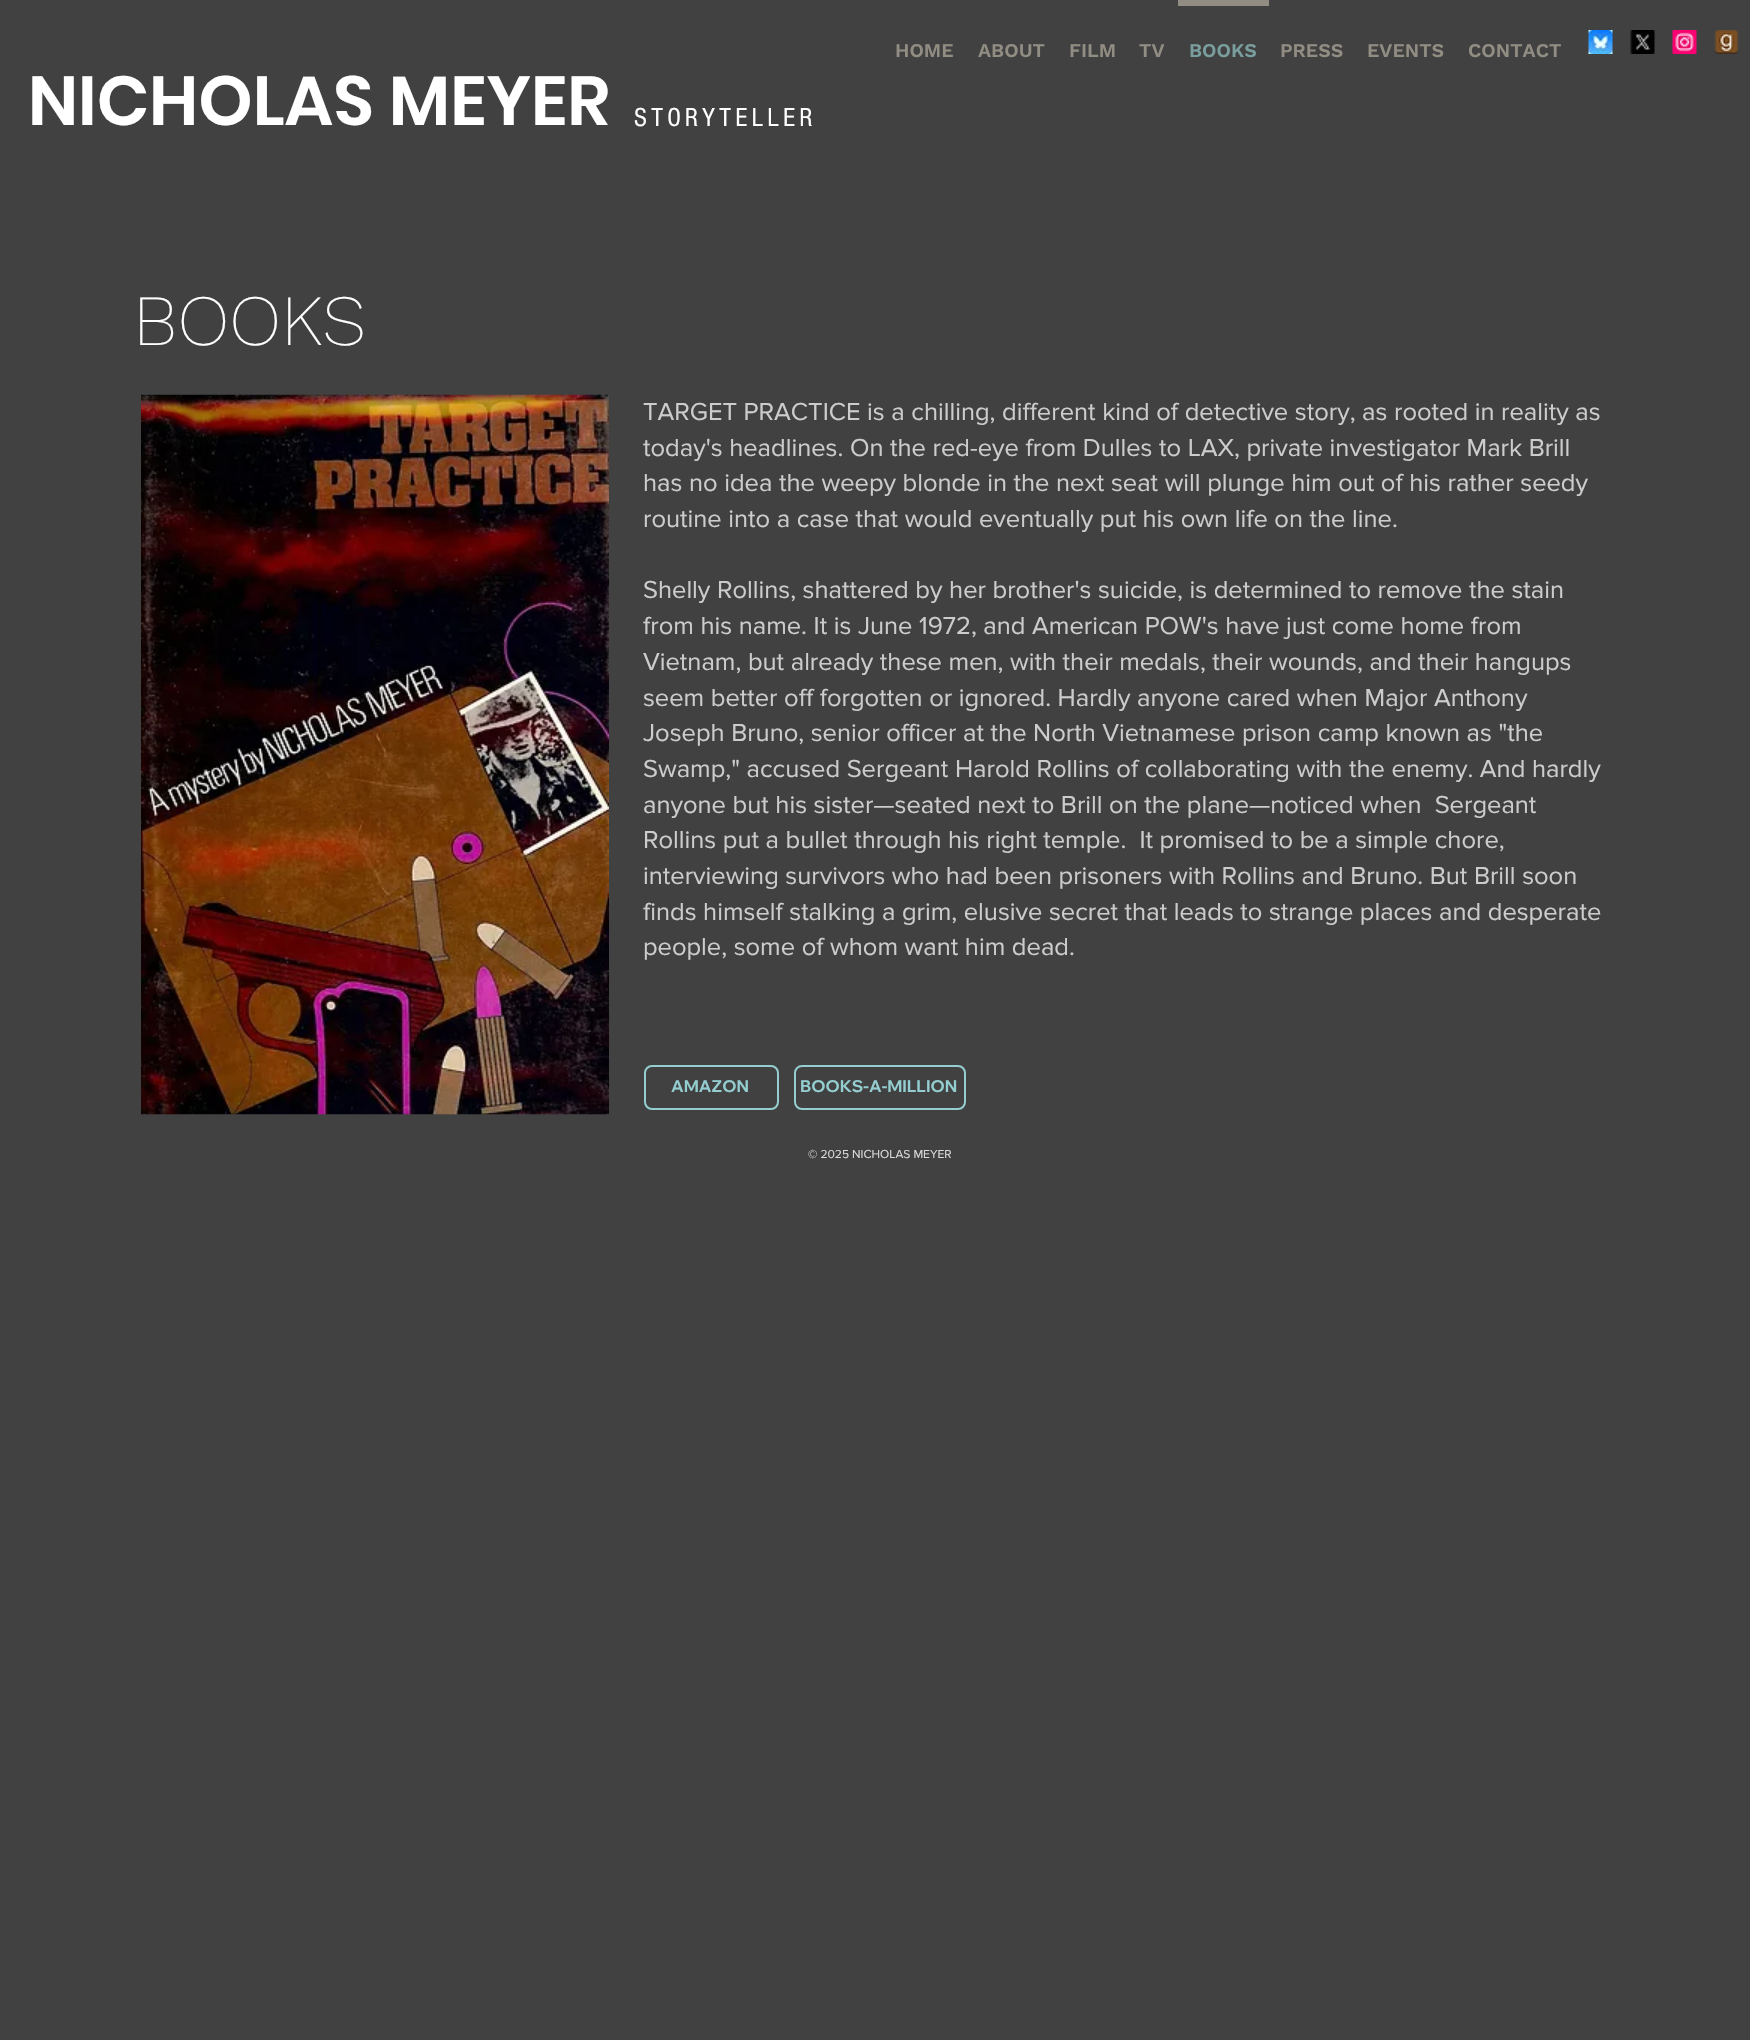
#include "include/core/SkBlurTypes.h"
#include "include/core/SkCanvas.h"
#include "include/core/SkData.h"
#include "include/core/SkFont.h"
#include "include/core/SkFontMgr.h"
#include "include/core/SkImage.h"
#include "include/core/SkMaskFilter.h"
#include "include/core/SkPaint.h"
#include "include/core/SkPathBuilder.h"
#include "include/core/SkTextBlob.h"
#include "include/effects/SkDashPathEffect.h"
#include "include/effects/SkGradientShader.h"
#include "include/utils/SkParsePath.h"

extern sk_sp<SkFontMgr> fontMgr;

void draw(SkCanvas* canvas) {
    SkPaint p;
    p.setAntiAlias(true);
    auto font = [&](const char* family, int weight, float size, bool italic = false) {
        SkFontStyle style(weight, SkFontStyle::kNormal_Width,
            italic ? SkFontStyle::kItalic_Slant : SkFontStyle::kUpright_Slant);
        SkFont result(fontMgr->matchFamilyStyle(family, style), size);
        result.setSubpixel(true);
        return result;
    };
    auto drawTracked = [&](const char* s, float x, float y, const SkFont& font, const SkPaint& ink, float letter, float word) {
        std::vector<SkGlyphID> glyphs(font.countText(s, strlen(s), SkTextEncoding::kUTF8));
        std::vector<float> xs(glyphs.size());
        font.textToGlyphs(s, strlen(s), SkTextEncoding::kUTF8, glyphs);
        font.getXPos(glyphs, xs, x);
        float extra = 0;
        for (size_t i = 0; i < glyphs.size(); i++) {
            xs[i] += extra;
            extra += letter + word * (glyphs[i] == font.unicharToGlyph(' '));
        }
        canvas->drawTextBlob(SkTextBlob::MakeFromPosHGlyphs(glyphs, xs, y, font), 0, 0, ink);
    };
    auto drawPhoto = [&](const char* path, float l, float t, float r, float b) {
        auto image = SkImages::DeferredFromEncodedData(SkData::MakeFromFileName(path));
        canvas->drawImageRect(image, SkRect::MakeLTRB(l, t, r, b), SkSamplingOptions());
    };
    canvas->clear(0xFF414141);
    auto font1 = font("Work Sans", 600, 19.5f);
    p.setColor(0xFF918D83);
    {
        const struct { const char* s; float x, y; } items[] = {
            {"HOME", 895, 57},
            {"ABOUT", 978, 57},
            {"FILM", 1069, 57},
            {"TV", 1139, 57},
        };
        for (auto [s, x, y] : items) {
            canvas->drawString(s, x, y, font1, p);
        }
    }
    canvas->drawRect(SkRect::MakeLTRB(1178, 0, 1269, 6), p);
    p.setColor(0xFF7A9E9E);
    canvas->drawString("BOOKS", 1189, 57, font1, p);
    p.setColor(0xFF918D83);
    {
        const struct { const char* s; float x, y; } items[] = {
            {"PRESS", 1280, 57},
            {"EVENTS", 1367, 57},
            {"CONTACT", 1468, 57},
        };
        for (auto [s, x, y] : items) {
            canvas->drawString(s, x, y, font1, p);
        }
    }
    drawPhoto("media/1.png", 1588, 30, 1613, 54);
    drawPhoto("media/2.png", 1630, 30, 1655, 54);
    drawPhoto("media/3.png", 1672, 30, 1697, 54);
    drawPhoto("media/4.png", 1714, 30, 1739, 54);
    auto font2 = font("Poppins", 600, 69);
    p.setColor(0xFFFFFFFF);
    canvas->drawString("NICHOLAS MEYER", 28, 125, font2, p);
    auto font3 = font("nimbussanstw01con", 400, 27);
    drawTracked("STORYTELLER", 634, 126, font3, p, 4, 0);
    auto font4 = font("Work Sans", 200, 72);
    canvas->drawString("BOOKS", 133, 345, font4, p);
    drawPhoto("media/5.png", 141, 394, 609, 1115);
    auto font5 = font("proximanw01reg", 400, 25.5f);
    p.setColor(0xFFCCCCCC);
    {
        const struct { const char* s; float x, y; } items[] = {
            {"TARGET PRACTICE is a chilling, different kind of detective story, as rooted in reality as", 643, 420},
            {"today's headlines. On the red-eye from Dulles to LAX, private investigator Mark Brill", 643, 456},
            {"has no idea the weepy blonde in the next seat will plunge him out of his rather seedy", 643, 491},
            {"routine into a case that would eventually put his own life on the line.", 643, 527},
            {"Shelly Rollins, shattered by her brother's suicide, is determined to remove the stain", 643, 598},
            {"from his name. It is June 1972, and American POW's have just come home from", 643, 634},
            {"Vietnam, but already these men, with their medals, their wounds, and their hangups", 643, 670},
            {"seem better off forgotten or ignored. Hardly anyone cared when Major Anthony", 643, 706},
            {"Joseph Bruno, senior officer at the North Vietnamese prison camp known as \"the", 643, 741},
            {"Swamp,\" accused Sergeant Harold Rollins of collaborating with the enemy. And hardly", 643, 777},
            {"anyone but his sister—seated next to Brill on the plane—noticed when  Sergeant", 643, 813},
            {"Rollins put a bullet through his right temple.  It promised to be a simple chore,", 643, 848},
            {"interviewing survivors who had been prisoners with Rollins and Bruno. But Brill soon", 643, 884},
            {"finds himself stalking a grim, elusive secret that leads to strange places and desperate", 643, 920},
            {"people, some of whom want him dead.", 643, 955},
        };
        for (auto [s, x, y] : items) {
            canvas->drawString(s, x, y, font5, p);
        }
    }
    p.setStyle(SkPaint::kStroke_Style);
    p.setStrokeWidth(2);
    p.setColor(0xFF94CED1);
    canvas->drawRoundRect(SkRect::MakeLTRB(645, 1066, 778, 1109), 7, 7, p);
    auto font6 = font("Wix Madefor Display", 700, 16.5f);
    p.setStyle(SkPaint::kFill_Style);
    canvas->drawString("AMAZON", 671, 1092, font6, p);
    p.setStyle(SkPaint::kStroke_Style);
    canvas->drawRoundRect(SkRect::MakeLTRB(795, 1066, 965, 1109), 7, 7, p);
    p.setStyle(SkPaint::kFill_Style);
    canvas->drawString("BOOKS-A-MILLION", 800, 1092, font6, p);
    auto font7 = font("proximanw01reg", 400, 12);
    p.setColor(0xFFDBDBDB);
    canvas->drawString("© 2025 NICHOLAS MEYER", 808, 1158, font7, p);
}
